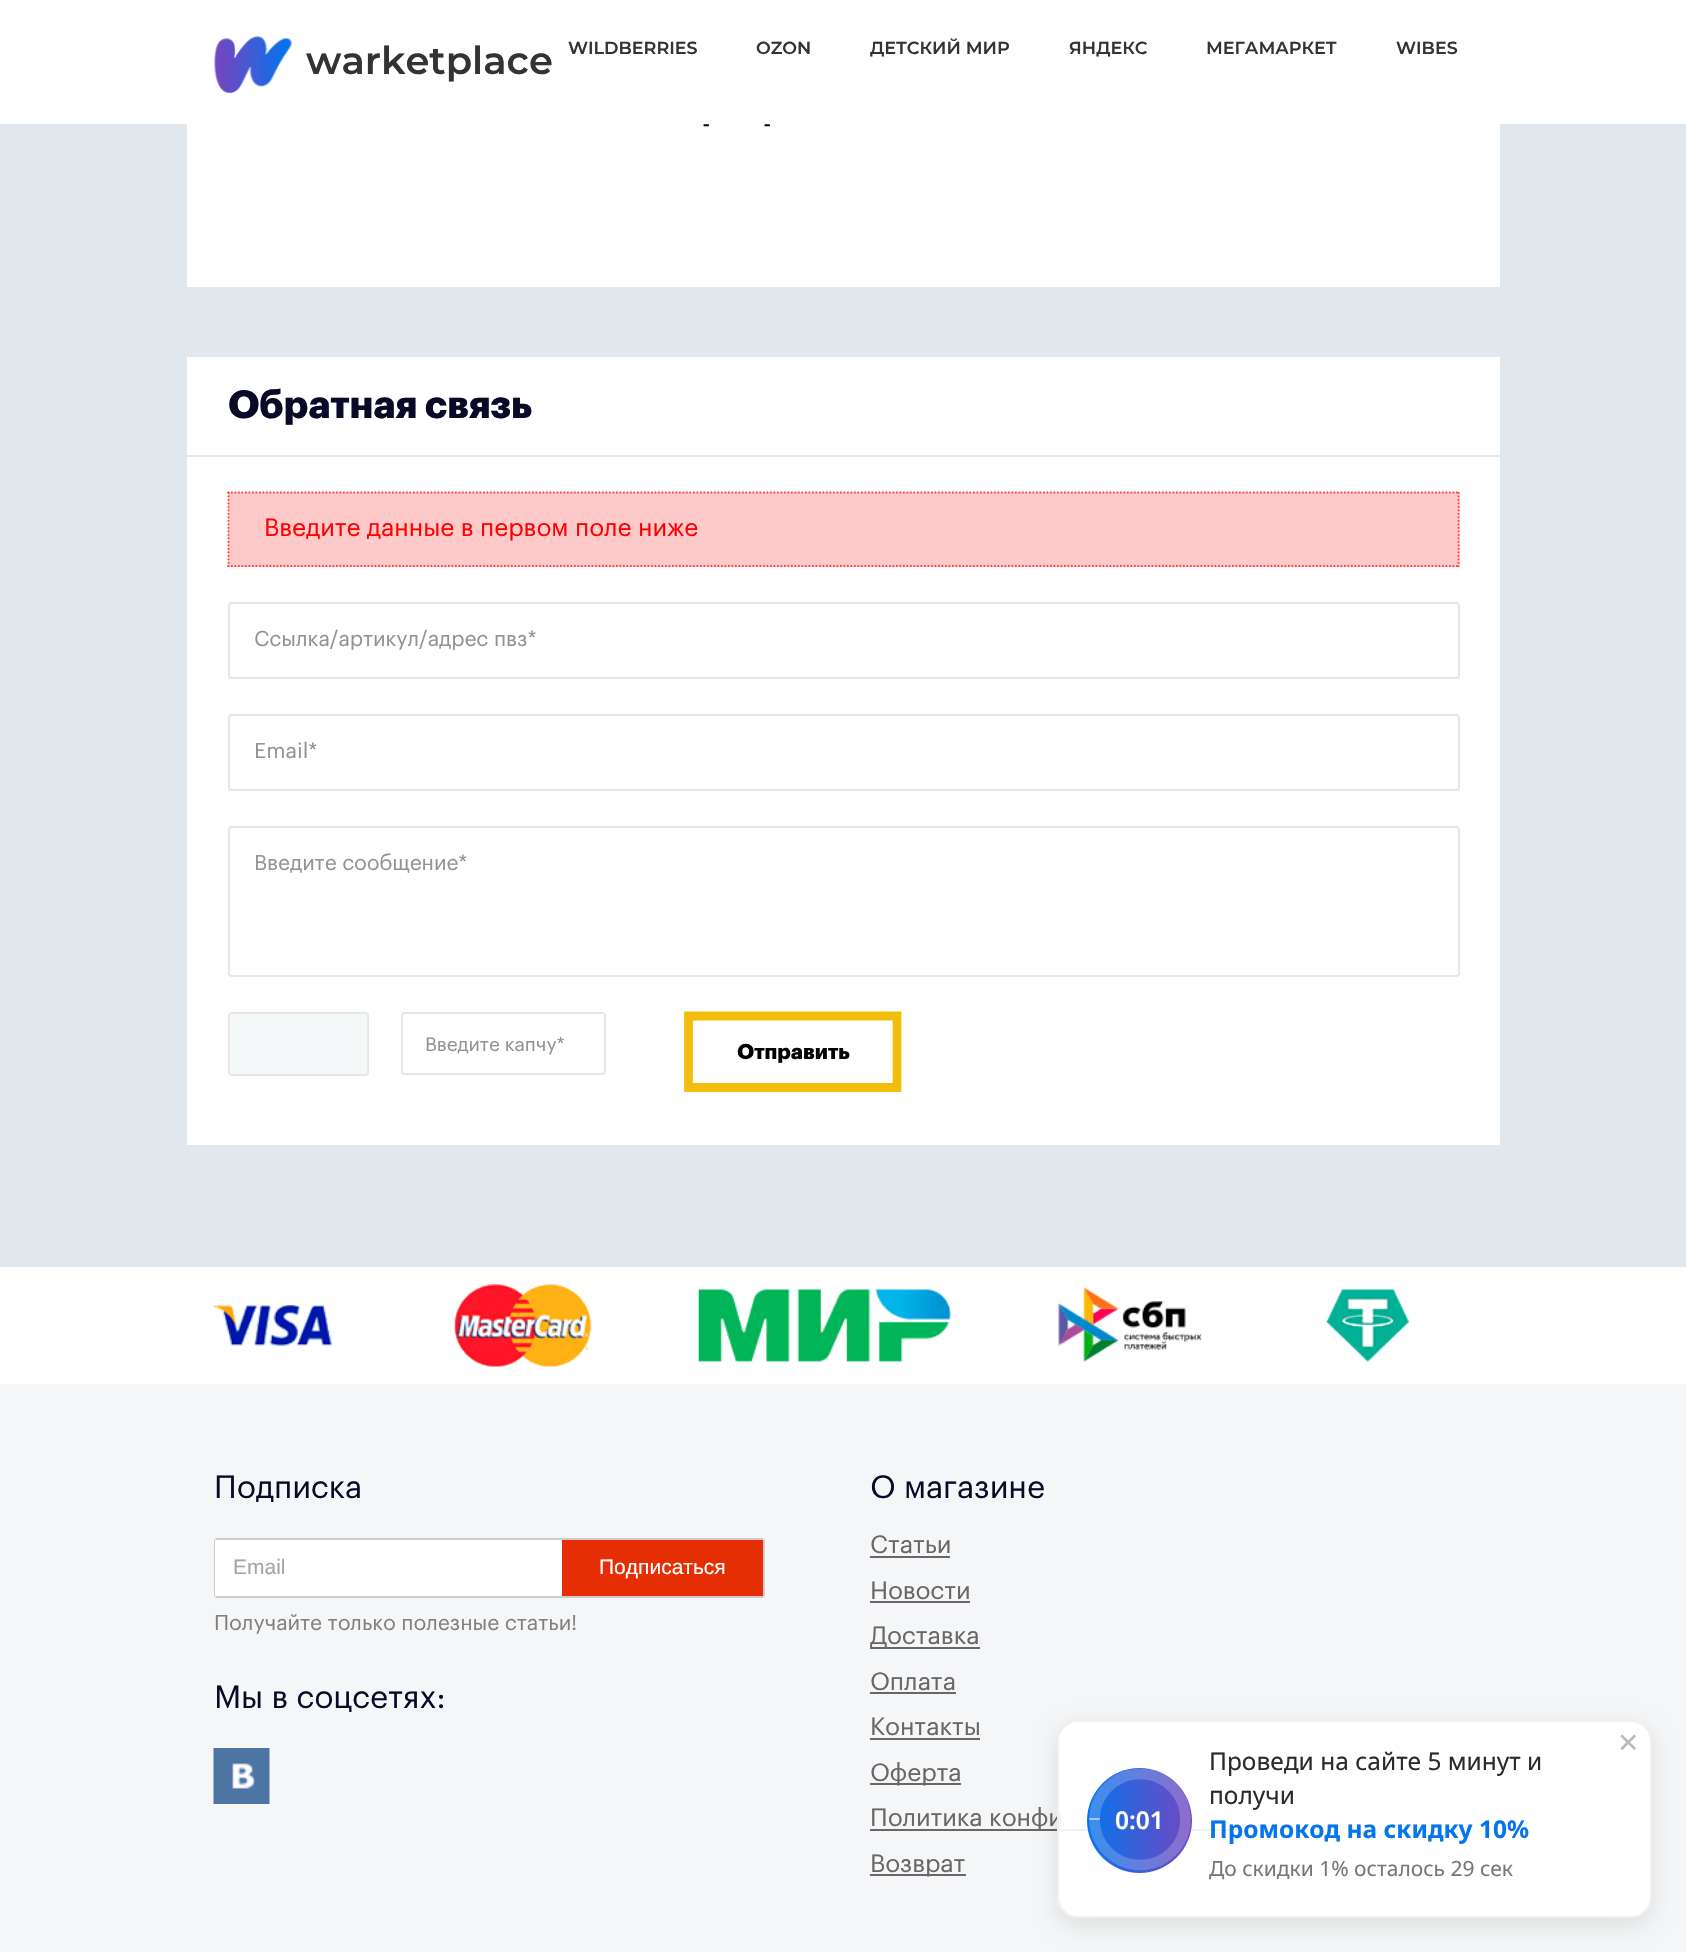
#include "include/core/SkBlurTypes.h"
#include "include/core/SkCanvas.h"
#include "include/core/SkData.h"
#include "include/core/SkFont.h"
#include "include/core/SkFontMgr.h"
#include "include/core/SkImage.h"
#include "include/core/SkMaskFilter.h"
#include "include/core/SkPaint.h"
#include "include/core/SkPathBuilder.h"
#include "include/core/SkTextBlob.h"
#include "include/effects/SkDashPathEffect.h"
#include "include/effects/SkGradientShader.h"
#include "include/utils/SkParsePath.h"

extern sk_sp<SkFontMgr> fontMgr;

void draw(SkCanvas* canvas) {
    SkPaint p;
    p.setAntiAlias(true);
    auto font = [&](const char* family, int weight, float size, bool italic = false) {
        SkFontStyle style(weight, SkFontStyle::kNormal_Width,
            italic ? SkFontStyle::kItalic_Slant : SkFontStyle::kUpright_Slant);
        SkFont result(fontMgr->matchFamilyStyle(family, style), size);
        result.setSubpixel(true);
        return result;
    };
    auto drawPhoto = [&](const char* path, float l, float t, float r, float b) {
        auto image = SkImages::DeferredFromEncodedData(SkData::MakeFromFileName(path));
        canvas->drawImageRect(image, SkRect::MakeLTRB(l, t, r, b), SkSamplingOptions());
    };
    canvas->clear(0xFFE1E8ED);
    p.setColor(0xFFFFFFFF);
    canvas->drawRect(SkRect::MakeLTRB(0, 0, 1686, 124), p);
    drawPhoto("media/1.png", 214, 36, 292, 94);
    auto font1 = font("Montserrat", 600, 38.5f);
    p.setColor(0xFF333333);
    canvas->drawString("warketplace", 306, 74, font1, p);
    auto font2 = font("Montserrat", 600, 17.5f);
    {
        const struct { const char* s; float x, y; } items[] = {
            {"WILDBERRIES", 568, 54},
            {"OZON", 756, 54},
            {"ДЕТСКИЙ МИР", 870, 54},
            {"ЯНДЕКС", 1069, 54},
            {"МЕГАМАРКЕТ", 1206, 54},
            {"WIBES", 1396, 54},
        };
        for (auto [s, x, y] : items) {
            canvas->drawString(s, x, y, font2, p);
        }
    }
    p.setColor(0xFFFFFFFF);
    canvas->drawRect(SkRect::MakeLTRB(187, 124, 1500, 287), p);
    auto font3 = font("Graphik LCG", 400, 24.5f);
    p.setColor(0xFF030303);
    canvas->drawString("-", 702, 132, font3, p);
    canvas->drawString("-", 763, 132, font3, p);
    p.setColor(0xFFFFFFFF);
    canvas->drawRect(SkRect::MakeLTRB(187, 357, 1500, 455), p);
    auto font4 = font("Graphik LCG", 700, 38.5f);
    p.setColor(0xFF0A0A28);
    canvas->drawString("Обратная связь", 228, 418, font4, p);
    p.setColor(0xFFFFFFFF);
    canvas->drawRect(SkRect::MakeLTRB(187, 457, 1500, 1145), p);
    p.setColor(0xFFFFCACA);
    canvas->drawRect(SkRect::MakeLTRB(228, 492, 1460, 567), p);
    p.setStyle(SkPaint::kStroke_Style);
    p.setStrokeWidth(1.8f);
    p.setColor(0xFFFF4545);
    p.setPathEffect(SkDashPathEffect::Make({{1.75f, 1.75f}}, 0));
    canvas->drawPath(SkPathBuilder().moveTo(227.5f, 492.5f).lineTo(1459.5f, 492.5f).detach(), p);
    p.setPathEffect(nullptr);
    p.setPathEffect(SkDashPathEffect::Make({{1.75f, 1.75f}}, 0));
    canvas->drawPath(SkPathBuilder().moveTo(1458.5f, 492).lineTo(1458.5f, 567).detach(), p);
    p.setPathEffect(nullptr);
    p.setPathEffect(SkDashPathEffect::Make({{1.75f, 1.75f}}, 0));
    canvas->drawPath(SkPathBuilder().moveTo(227.5f, 566).lineTo(1459.5f, 566).detach(), p);
    p.setPathEffect(nullptr);
    p.setPathEffect(SkDashPathEffect::Make({{1.75f, 1.75f}}, 0));
    canvas->drawPath(SkPathBuilder().moveTo(228.5f, 492).lineTo(228.5f, 567).detach(), p);
    p.setPathEffect(nullptr);
    p.setStyle(SkPaint::kFill_Style);
    p.setColor(0xFFFF0000);
    canvas->drawString("Введите данные в первом поле ниже", 264, 536, font3, p);
    p.setStyle(SkPaint::kStroke_Style);
    p.setStrokeWidth(2);
    p.setColor(0xFFE8E8E1);
    canvas->drawRoundRect(SkRect::MakeLTRB(229, 603, 1459, 678), 3, 3, p);
    auto font5 = font("Graphik LCG", 400, 21);
    p.setStyle(SkPaint::kFill_Style);
    p.setColor(0xFF929292);
    canvas->drawString("Ссылка/артикул/адрес пвз*", 254, 646, font5, p);
    p.setStyle(SkPaint::kStroke_Style);
    p.setColor(0xFFE8E8E1);
    canvas->drawRoundRect(SkRect::MakeLTRB(229, 715, 1459, 790), 3, 3, p);
    p.setStyle(SkPaint::kFill_Style);
    p.setColor(0xFF929292);
    canvas->drawString("Email*", 254, 758, font5, p);
    p.setStyle(SkPaint::kStroke_Style);
    p.setColor(0xFFE8E8E1);
    canvas->drawRoundRect(SkRect::MakeLTRB(229, 827, 1459, 976), 3, 3, p);
    p.setStyle(SkPaint::kFill_Style);
    p.setColor(0xFF929292);
    canvas->drawString("Введите сообщение*", 254, 870, font5, p);
    p.setColor(0xFFF5F8F9);
    canvas->drawRoundRect(SkRect::MakeLTRB(229, 1013, 368, 1075), 3, 3, p);
    p.setStyle(SkPaint::kStroke_Style);
    p.setColor(0xFFE8E8E1);
    canvas->drawRoundRect(SkRect::MakeLTRB(229, 1013, 368, 1075), 3, 3, p);
    canvas->drawRoundRect(SkRect::MakeLTRB(402, 1013, 605, 1074), 3, 3, p);
    auto font6 = font("Graphik LCG", 400, 19);
    p.setStyle(SkPaint::kFill_Style);
    p.setColor(0xFF929292);
    canvas->drawString("Введите капчу*", 425, 1051, font6, p);
    p.setStyle(SkPaint::kStroke_Style);
    p.setStrokeWidth(8.8f);
    p.setColor(0xFFF2BD0B);
    canvas->drawPath(SkPathBuilder().moveTo(688.5f, 1016).lineTo(897, 1016).lineTo(897, 1087.5f).lineTo(688.5f, 1087.5f).close().detach(), p);
    auto font7 = font("Graphik LCG", 700, 21);
    p.setStyle(SkPaint::kFill_Style);
    p.setColor(0xFF030303);
    canvas->drawString("Отправить", 737, 1059, font7, p);
    p.setColor(0xFFFFFFFF);
    canvas->drawRect(SkRect::MakeLTRB(0, 1267, 1686, 1384), p);
    drawPhoto("media/2.png", 213, 1284, 1409, 1367);
    p.setColor(0xFFF5F6F7);
    canvas->drawRect(SkRect::MakeLTRB(0, 1384, 1686, 1952), p);
    auto font8 = font("Graphik LCG", 400, 31.5f);
    p.setColor(0xFF0A0A28);
    canvas->drawString("Подписка", 214, 1498, font8, p);
    p.setStyle(SkPaint::kStroke_Style);
    p.setStrokeWidth(2);
    p.setColor(0xFFCCCCCC);
    canvas->drawRoundRect(SkRect::MakeLTRB(215, 1539, 764, 1597), 3, 3, p);
    p.setStyle(SkPaint::kFill_Style);
    p.setColor(0xFFFFFFFF);
    canvas->drawRect(SkRect::MakeLTRB(215, 1540, 562, 1596), p);
    auto font9 = font("Liberation Sans", 400, 21);
    p.setColor(0xFFA8A5A5);
    canvas->drawString("Email", 233, 1574, font9, p);
    p.setColor(0xFFE62E04);
    canvas->drawRect(SkRect::MakeLTRB(562, 1540, 763, 1596), p);
    p.setColor(0xFFFFFFFF);
    canvas->drawString("Подписаться", 599, 1574, font9, p);
    p.setColor(0xFF827F7F);
    canvas->drawString("Получайте только полезные статьи!", 214, 1630, font5, p);
    p.setColor(0xFF0A0A28);
    canvas->drawString("Мы в соцсетях:", 214, 1708, font8, p);
    drawPhoto("media/3.png", 213, 1748, 270, 1804);
    canvas->drawString("О магазине", 870, 1498, font8, p);
    p.setColor(0xFF686666);
    canvas->drawString("Статьи", 870, 1553, font3, p);
    canvas->drawRect(SkRect::MakeLTRB(870, 1556, 950, 1558), p);
    canvas->drawString("Новости", 870, 1599, font3, p);
    canvas->drawRect(SkRect::MakeLTRB(870, 1601, 970, 1603), p);
    canvas->drawRect(SkRect::MakeLTRB(870, 1647, 980, 1649), p);
    canvas->drawString("Доставка", 870, 1644, font3, p);
    canvas->drawString("Оплата", 870, 1690, font3, p);
    canvas->drawRect(SkRect::MakeLTRB(870, 1692, 956, 1694), p);
    canvas->drawString("Контакты", 870, 1735, font3, p);
    canvas->drawRect(SkRect::MakeLTRB(870, 1738, 980, 1740), p);
    canvas->drawRect(SkRect::MakeLTRB(870, 1783, 961, 1785), p);
    canvas->drawString("Оферта", 870, 1781, font3, p);
    canvas->drawRect(SkRect::MakeLTRB(870, 1829, 1243, 1831), p);
    canvas->drawString("Политика конфи", 870, 1826, font3, p);
    canvas->drawRect(SkRect::MakeLTRB(870, 1874, 966, 1876), p);
    canvas->drawString("Возврат", 870, 1872, font3, p);
    canvas->save();
    canvas->clipPath(SkPathBuilder(SkPathFillType::kEvenOdd).moveTo(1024, 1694).lineTo(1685, 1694).lineTo(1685, 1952).lineTo(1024, 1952).close().moveTo(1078, 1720).lineTo(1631, 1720).cubicTo(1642.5f, 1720, 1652, 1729.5f, 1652, 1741).lineTo(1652, 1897).cubicTo(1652, 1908.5f, 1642.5f, 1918, 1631, 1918).lineTo(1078, 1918).cubicTo(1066.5f, 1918, 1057, 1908.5f, 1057, 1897).lineTo(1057, 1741).cubicTo(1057, 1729.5f, 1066.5f, 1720, 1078, 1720).close().detach(), true);
    p.setColor(0x1A000000);
    p.setMaskFilter(SkMaskFilter::MakeBlur(kNormal_SkBlurStyle, 10.5f));
    canvas->drawRoundRect(SkRect::MakeLTRB(1057, 1727, 1652, 1925), 21, 21, p);
    p.setMaskFilter(nullptr);
    canvas->restore();
    p.setColor(0xEBFFFFFF);
    canvas->drawRoundRect(SkRect::MakeLTRB(1058, 1721, 1651, 1917), 20, 20, p);
    p.setStyle(SkPaint::kStroke_Style);
    p.setColor(0xFFF0F0F0);
    canvas->drawRoundRect(SkRect::MakeLTRB(1058, 1721, 1651, 1917), 20, 20, p);
    auto font10 = font("Liberation Sans", 400, 35);
    p.setStyle(SkPaint::kFill_Style);
    p.setColor(0xFFBBBBBB);
    canvas->drawString("×", 1618, 1754, font10, p);
    {
        const SkColor colors[] = {0xFF7347C1, 0xFF0674EC};
        const float stops[] = {0, 1};
        const SkPoint ends[] = {{1192, 1820}, {1087, 1820}};
        p.setShader(SkGradientShader::MakeLinear(ends, colors, stops, 2, SkTileMode::kClamp));
        p.setAlpha(255);
    }
    canvas->drawCircle(1139.5f, 1820.5f, 52.5f, p);
    p.setStyle(SkPaint::kStroke_Style);
    p.setStrokeWidth(10.5f);
    p.setShader(nullptr);
    p.setColor(0x33FFFFFF);
    canvas->drawPath(SkPathBuilder().moveTo(1094.5f, 1819.5f).cubicTo(1094.5f, 1794, 1115, 1774, 1140, 1774).cubicTo(1165, 1774, 1185.5f, 1794, 1185.5f, 1819.5f).cubicTo(1185.5f, 1844.5f, 1165, 1865, 1140, 1865).cubicTo(1115, 1865, 1094.5f, 1844.5f, 1094.5f, 1819.5f).close().detach(), p);
    p.setColor(0xFFFFFFFF);
    canvas->drawPath(SkPathBuilder().moveTo(1094.5f, 1819.5f).lineTo(1094.5f, 1818.5f).detach(), p);
    auto font11 = font("Noto Sans", 600, 24.5f);
    p.setStyle(SkPaint::kFill_Style);
    canvas->drawString("0:01", 1115, 1829, font11, p);
    auto font12 = font("Noto Sans", 400, 24.5f);
    p.setColor(0xFF2B2B2B);
    canvas->drawString("Проведи на сайте 5 минут и", 1209, 1770, font12, p);
    canvas->drawString("получи", 1209, 1804, font12, p);
    auto font13 = font("Noto Sans", 700, 24.5f);
    p.setColor(0xFF0674EC);
    canvas->drawString("Промокод на скидку 10%", 1209, 1838, font13, p);
    auto font14 = font("Noto Sans", 400, 21);
    p.setColor(0xFF777777);
    canvas->drawString("До скидки 1% осталось 29 сек", 1209, 1876, font14, p);
}
